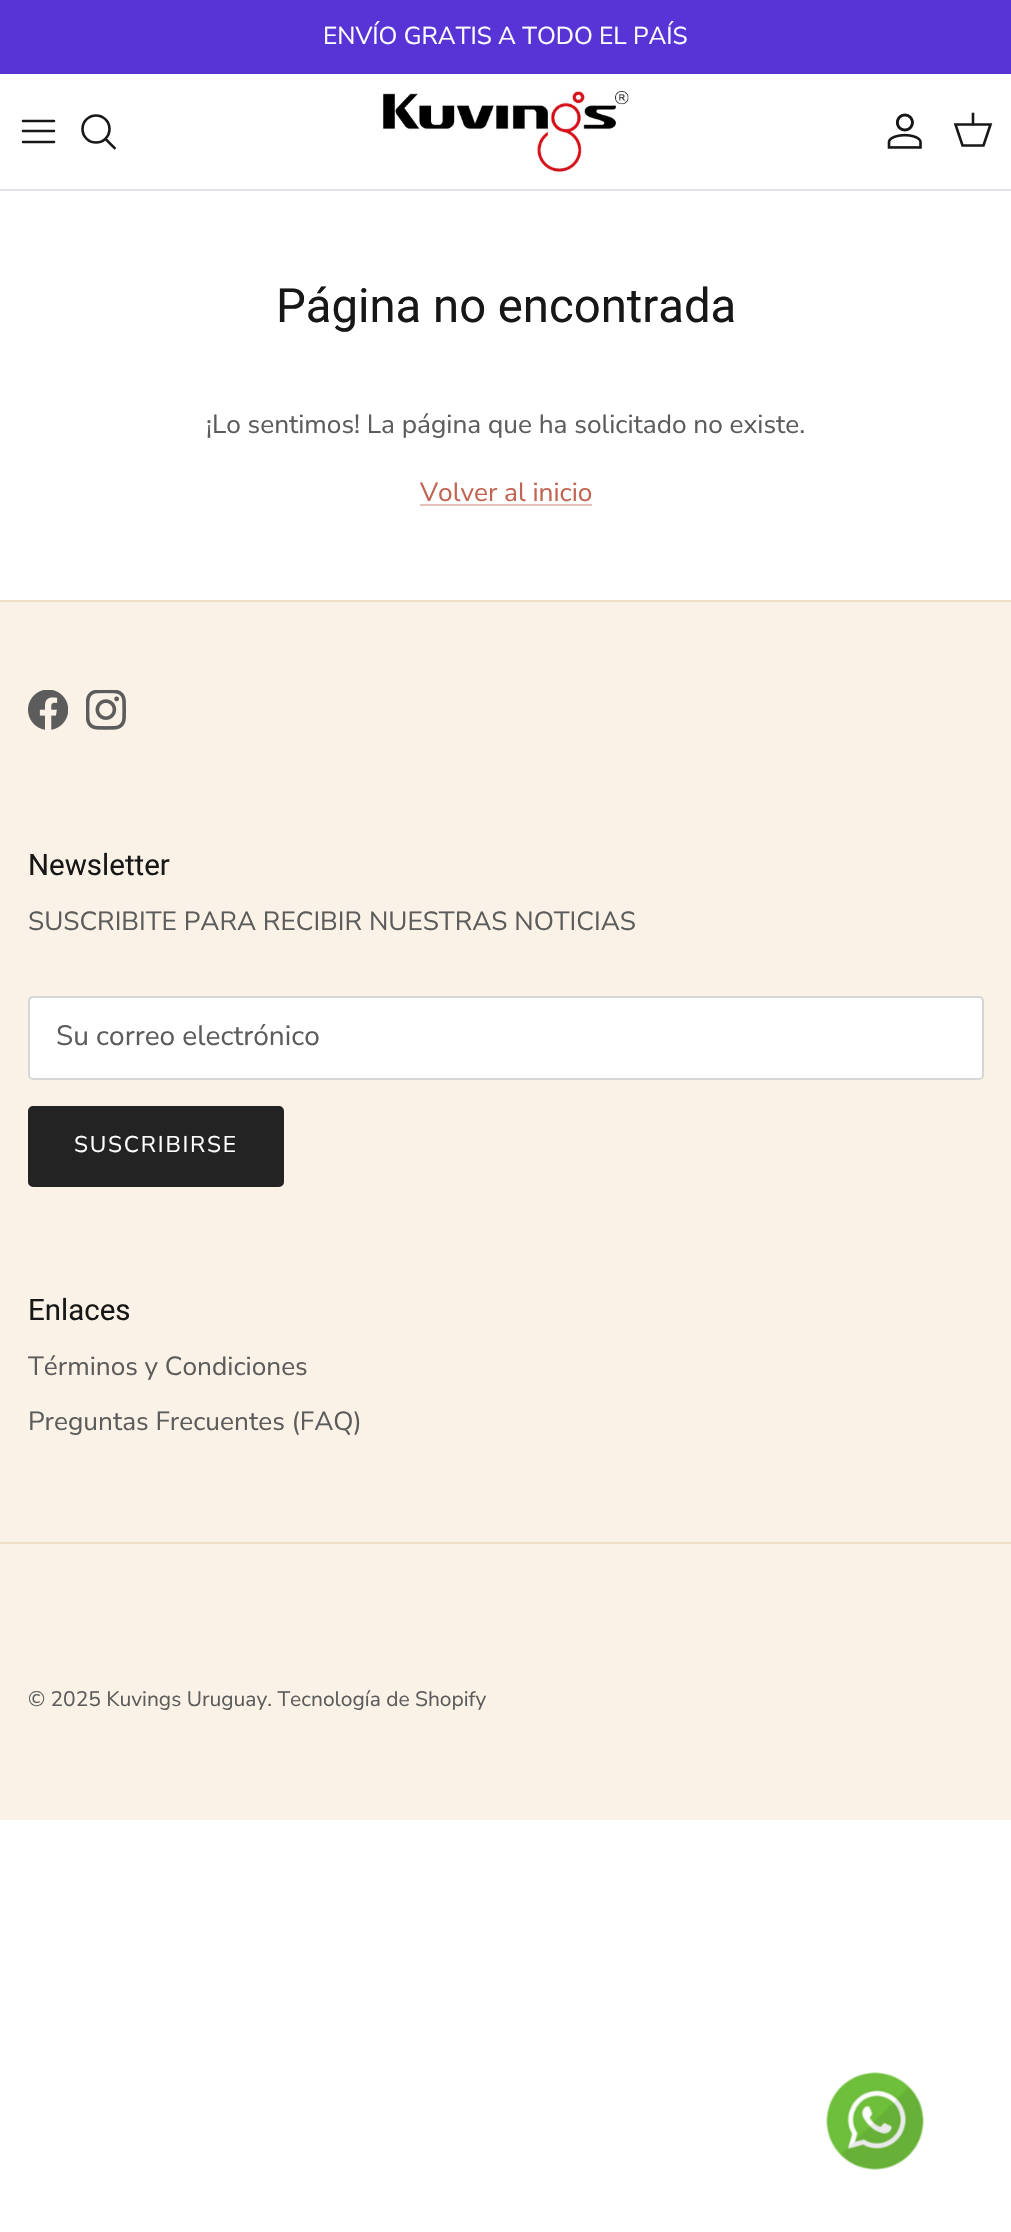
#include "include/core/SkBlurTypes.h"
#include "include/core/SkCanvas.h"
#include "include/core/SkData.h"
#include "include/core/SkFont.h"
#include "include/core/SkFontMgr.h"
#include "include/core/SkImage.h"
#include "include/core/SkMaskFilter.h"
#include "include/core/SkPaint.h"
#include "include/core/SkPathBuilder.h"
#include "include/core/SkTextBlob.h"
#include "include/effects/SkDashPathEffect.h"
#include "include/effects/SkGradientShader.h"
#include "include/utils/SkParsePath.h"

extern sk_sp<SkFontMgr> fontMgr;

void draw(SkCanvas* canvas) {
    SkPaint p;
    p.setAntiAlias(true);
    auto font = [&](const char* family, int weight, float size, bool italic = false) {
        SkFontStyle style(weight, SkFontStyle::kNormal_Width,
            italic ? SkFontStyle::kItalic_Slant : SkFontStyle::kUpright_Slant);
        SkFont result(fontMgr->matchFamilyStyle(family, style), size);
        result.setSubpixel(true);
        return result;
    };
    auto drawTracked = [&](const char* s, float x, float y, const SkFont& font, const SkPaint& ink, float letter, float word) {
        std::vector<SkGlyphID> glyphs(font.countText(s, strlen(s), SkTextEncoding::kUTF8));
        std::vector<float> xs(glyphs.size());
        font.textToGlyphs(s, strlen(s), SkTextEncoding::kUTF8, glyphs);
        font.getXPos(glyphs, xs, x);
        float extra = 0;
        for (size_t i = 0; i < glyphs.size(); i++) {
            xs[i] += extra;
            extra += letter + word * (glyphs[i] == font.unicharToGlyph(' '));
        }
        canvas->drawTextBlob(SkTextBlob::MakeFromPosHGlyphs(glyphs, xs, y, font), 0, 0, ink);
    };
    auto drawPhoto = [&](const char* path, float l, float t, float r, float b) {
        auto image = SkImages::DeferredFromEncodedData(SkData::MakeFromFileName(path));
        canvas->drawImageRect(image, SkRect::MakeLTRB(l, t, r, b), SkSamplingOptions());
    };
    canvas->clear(0xFFFFFFFF);
    p.setColor(0xFF5833D5);
    canvas->drawRect(SkRect::MakeLTRB(0, 0, 1011, 74), p);
    auto font1 = font("Nunito Sans", 400, 24.5f);
    p.setColor(0xFFFFFFFF);
    canvas->drawString("ENVÍO GRATIS A TODO EL PAÍS", 323, 44, font1, p);
    p.setColor(0xFFDFE3E8);
    canvas->drawRect(SkRect::MakeLTRB(0, 189, 1011, 191), p);
    p.setStyle(SkPaint::kStroke_Style);
    p.setStrokeWidth(2.6f);
    p.setStrokeCap(SkPaint::kRound_Cap);
    p.setStrokeJoin(SkPaint::kRound_Join);
    p.setColor(0xFF171717);
    canvas->drawPath(SkPathBuilder().moveTo(23, 131).lineTo(54, 131).moveTo(23, 121).lineTo(54, 121).moveTo(23, 142).lineTo(54, 142).detach(), p);
    p.setStrokeCap(SkPaint::kButt_Cap);
    p.setStrokeJoin(SkPaint::kMiter_Join);
    canvas->drawCircle(96, 129, 13.5f, p);
    p.setStrokeCap(SkPaint::kSquare_Cap);
    canvas->drawPath(SkPathBuilder().moveTo(106.5f, 140).lineTo(114.5f, 148).detach(), p);
    drawPhoto("media/1.png", 383, 91, 629, 172);
    drawPhoto("media/2.png", 887, 113, 922, 149);
    p.setStrokeCap(SkPaint::kButt_Cap);
    canvas->drawPath(SkPathBuilder().moveTo(955.5f, 124.5f).lineTo(990.5f, 124.5f).lineTo(983.5f, 145.5f).lineTo(962.5f, 145.5f).close().detach(), p);
    p.setStrokeCap(SkPaint::kSquare_Cap);
    canvas->drawPath(SkPathBuilder().moveTo(973, 124).lineTo(973, 114).detach(), p);
    auto font2 = font("Roboto", 400, 47.25f);
    p.setStyle(SkPaint::kFill_Style);
    canvas->drawString("Página no encontrada", 276, 322, font2, p);
    auto font3 = font("Nunito Sans", 400, 26.25f);
    p.setColor(0xFF5C5C5C);
    canvas->drawString("¡Lo sentimos! La página que ha solicitado no existe.", 206, 433, font3, p);
    p.setColor(0xFFC16452);
    canvas->drawString("Volver al inicio", 420, 501, font3, p);
    {
        const struct { float l, t, r, b; SkColor color; } items[] = {
            {420, 504, 592, 506, 0xFFE6C1BA},
            {0, 602, 1011, 1820, 0xFFFAF2E6},
            {0, 600, 1011, 602, 0xFFEFDFC7},
        };
        for (auto [l, t, r, b, color] : items) {
            p.setColor(color);
            canvas->drawRect(SkRect::MakeLTRB(l, t, r, b), p);
        }
    }
    drawPhoto("media/3.png", 28, 690, 68, 730);
    drawPhoto("media/4.png", 86, 690, 126, 730);
    auto font4 = font("Roboto", 400, 29.5f);
    p.setColor(0xFF171717);
    canvas->drawString("Newsletter", 28, 875, font4, p);
    p.setColor(0xFF5C5C5C);
    canvas->drawString("SUSCRIBITE PARA RECIBIR NUESTRAS NOTICIAS", 28, 930, font3, p);
    p.setColor(0xFFFFFFFF);
    canvas->drawRoundRect(SkRect::MakeLTRB(29, 997, 983, 1079), 4, 4, p);
    p.setStyle(SkPaint::kStroke_Style);
    p.setStrokeWidth(2);
    p.setStrokeCap(SkPaint::kButt_Cap);
    p.setColor(0xFFD6D6D6);
    canvas->drawRoundRect(SkRect::MakeLTRB(29, 997, 983, 1079), 4, 4, p);
    auto font5 = font("Nunito Sans", 400, 28);
    p.setStyle(SkPaint::kFill_Style);
    p.setColor(0xFF5C5C5C);
    canvas->drawString("Su correo electrónico", 56, 1045, font5, p);
    p.setColor(0xFF232323);
    canvas->drawRoundRect(SkRect::MakeLTRB(29, 1107, 283, 1186), 4, 4, p);
    p.setStyle(SkPaint::kStroke_Style);
    canvas->drawRoundRect(SkRect::MakeLTRB(29, 1107, 283, 1186), 4, 4, p);
    auto font6 = font("Nunito Sans", 400, 22.75f);
    p.setStyle(SkPaint::kFill_Style);
    p.setColor(0xFFFFFFFF);
    drawTracked("SUSCRIBIRSE", 74, 1152, font6, p, 1.75f, 0);
    p.setColor(0xFF171717);
    canvas->drawString("Enlaces", 28, 1320, font4, p);
    p.setColor(0xFF5C5C5C);
    canvas->drawString("Términos y Condiciones", 28, 1375, font3, p);
    canvas->drawString("Preguntas Frecuentes (FAQ)", 28, 1430, font3, p);
    p.setColor(0xFFEFDFC7);
    canvas->drawRect(SkRect::MakeLTRB(0, 1542, 1011, 1544), p);
    auto font7 = font("Nunito Sans", 400, 21);
    p.setColor(0xFF5C5C5C);
    canvas->drawString("© 2025 Kuvings Uruguay. Tecnología de Shopify", 28, 1706, font7, p);
    drawPhoto("media/5.png", 826, 2072, 924, 2170);
}
